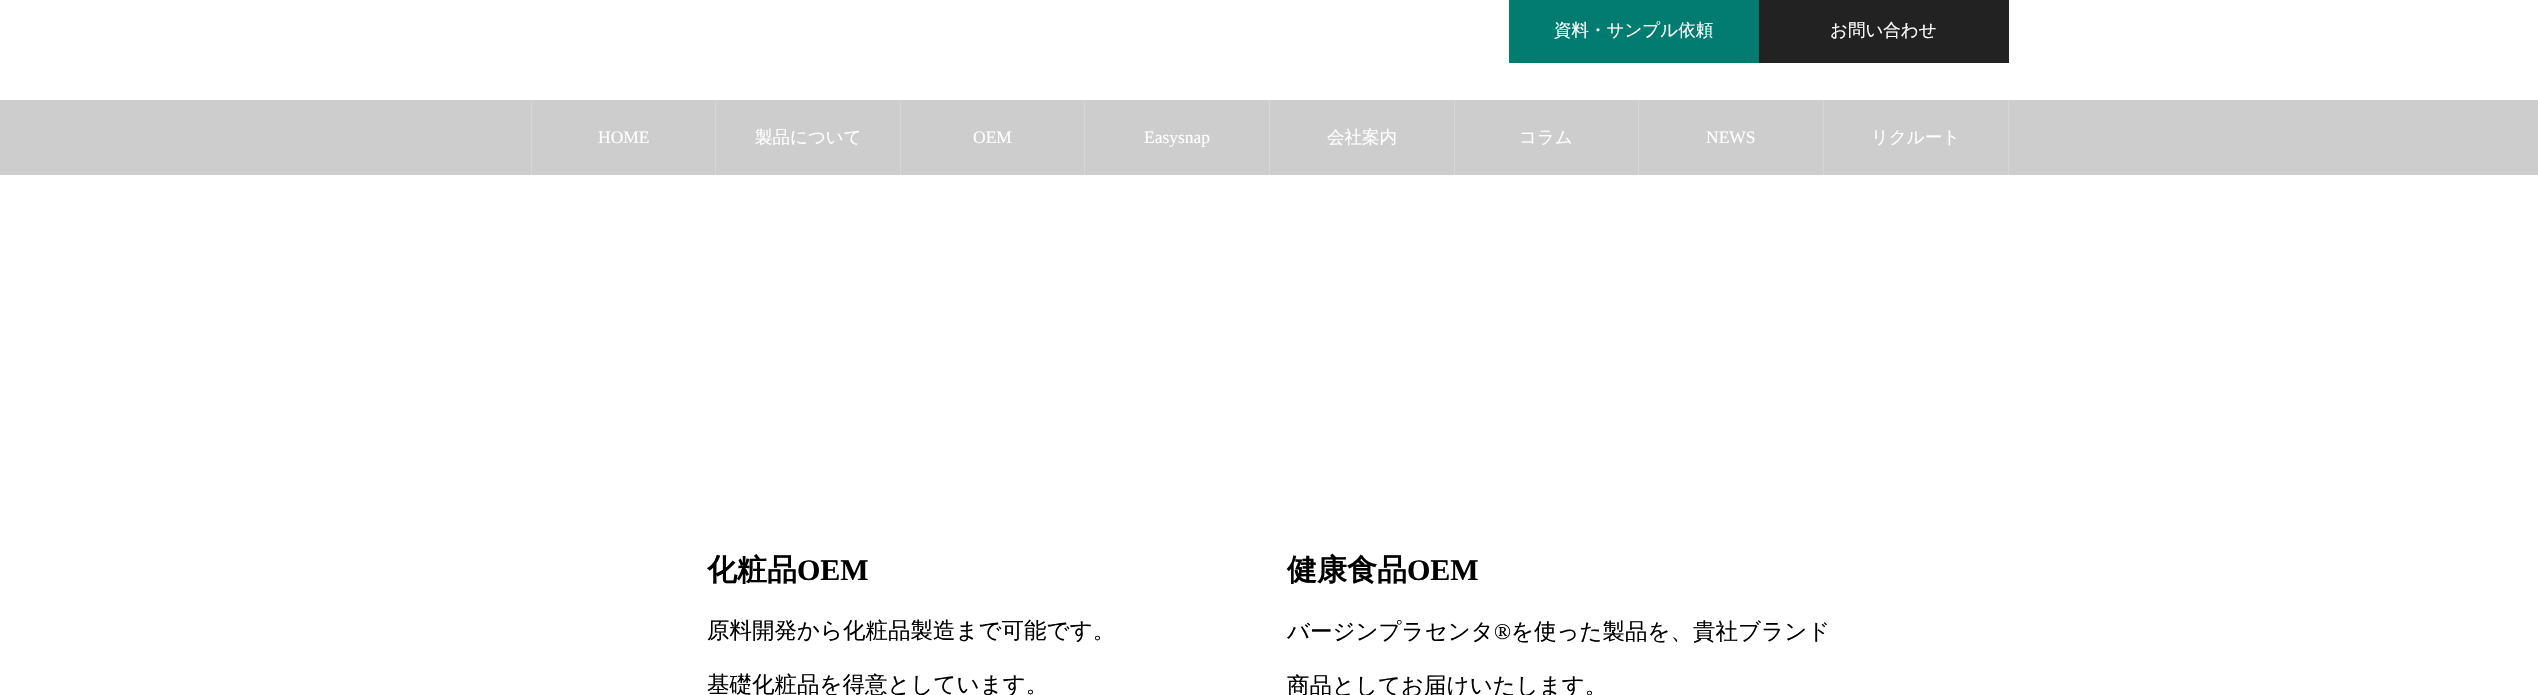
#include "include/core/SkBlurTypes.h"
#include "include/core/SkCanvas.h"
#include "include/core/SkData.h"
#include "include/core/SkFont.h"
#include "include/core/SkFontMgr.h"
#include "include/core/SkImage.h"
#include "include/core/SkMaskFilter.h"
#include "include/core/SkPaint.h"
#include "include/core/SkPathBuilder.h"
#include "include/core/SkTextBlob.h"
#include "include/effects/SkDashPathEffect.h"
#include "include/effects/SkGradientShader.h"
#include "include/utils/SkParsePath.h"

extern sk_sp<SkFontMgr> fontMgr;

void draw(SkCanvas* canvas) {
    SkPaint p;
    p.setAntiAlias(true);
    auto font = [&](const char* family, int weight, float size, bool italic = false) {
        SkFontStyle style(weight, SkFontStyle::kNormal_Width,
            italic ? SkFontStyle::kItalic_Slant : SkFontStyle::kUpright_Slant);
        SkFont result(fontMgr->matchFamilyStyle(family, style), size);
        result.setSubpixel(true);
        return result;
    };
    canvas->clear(0xFFFFFFFF);
    p.setColor(0xFF027B71);
    canvas->drawRect(SkRect::MakeLTRB(1509, 0, 1759, 63), p);
    auto font1 = font("WenQuanYi Zen Hei", 500, 17.5f);
    p.setColor(0xFFFFFFFF);
    canvas->drawString("資料・サンプル依頼", 1554, 36, font1, p);
    p.setColor(0xFF222222);
    canvas->drawRect(SkRect::MakeLTRB(1759, 0, 2009, 63), p);
    p.setColor(0xFFFFFFFF);
    canvas->drawString("お問い合わせ", 1830, 36, font1, p);
    {
        const struct { float l, t, r, b; SkColor color; } items[] = {
            {0, 100, 2538, 175, 0xFFCDCDCD},
            {531, 100, 532, 175, 0xFFD7D7D7},
            {715, 100, 716, 175, 0xFFD7D7D7},
        };
        for (auto [l, t, r, b, color] : items) {
            p.setColor(color);
            canvas->drawRect(SkRect::MakeLTRB(l, t, r, b), p);
        }
    }
    auto font2 = font("Liberation Serif", 400, 17.5f);
    p.setColor(0xFFFFFFFF);
    canvas->drawString("HOME", 598, 143, font2, p);
    p.setColor(0xFFD7D7D7);
    canvas->drawRect(SkRect::MakeLTRB(900, 100, 901, 175), p);
    p.setColor(0xFFFFFFFF);
    canvas->drawString("製品について", 755, 143, font1, p);
    p.setColor(0xFFD7D7D7);
    canvas->drawRect(SkRect::MakeLTRB(1084, 100, 1085, 175), p);
    p.setColor(0xFFFFFFFF);
    canvas->drawString("OEM", 973, 143, font2, p);
    p.setColor(0xFFD7D7D7);
    canvas->drawRect(SkRect::MakeLTRB(1269, 100, 1270, 175), p);
    p.setColor(0xFFFFFFFF);
    canvas->drawString("Easysnap", 1144, 143, font2, p);
    p.setColor(0xFFD7D7D7);
    canvas->drawRect(SkRect::MakeLTRB(1454, 100, 1455, 175), p);
    p.setColor(0xFFFFFFFF);
    canvas->drawString("会社案内", 1327, 143, font1, p);
    p.setColor(0xFFD7D7D7);
    canvas->drawRect(SkRect::MakeLTRB(1638, 100, 1639, 175), p);
    p.setColor(0xFFFFFFFF);
    canvas->drawString("コラム", 1519, 143, font1, p);
    p.setColor(0xFFD7D7D7);
    canvas->drawRect(SkRect::MakeLTRB(1823, 100, 1824, 175), p);
    p.setColor(0xFFFFFFFF);
    canvas->drawString("NEWS", 1706, 143, font2, p);
    p.setColor(0xFFD7D7D7);
    canvas->drawRect(SkRect::MakeLTRB(2008, 100, 2009, 175), p);
    p.setColor(0xFFFFFFFF);
    canvas->drawString("リクルート", 1871, 143, font1, p);
    auto font3 = font("WenQuanYi Zen Hei", 700, 30);
    p.setColor(0xFF000000);
    canvas->drawString("化粧品", 707, 580, font3, p);
    auto font4 = font("Liberation Serif", 700, 30);
    canvas->drawString("OEM", 797, 580, font4, p);
    auto font5 = font("WenQuanYi Zen Hei", 500, 22.5f);
    canvas->drawString("原料開発から化粧品製造まで可能です。", 707, 638, font5, p);
    canvas->drawString("基礎化粧品を得意としています。", 707, 692, font5, p);
    canvas->drawString("健康食品", 1287, 580, font3, p);
    canvas->drawString("OEM", 1407, 580, font4, p);
    canvas->drawString("バージンプラセンタ", 1287, 639, font5, p);
    auto font6 = font("Liberation Serif", 400, 22.5f);
    canvas->drawString("®", 1494, 639, font6, p);
    canvas->drawString("を使った製品を、貴社ブランド", 1511, 639, font5, p);
    canvas->drawString("商品としてお届けいたします。", 1287, 693, font5, p);
}
